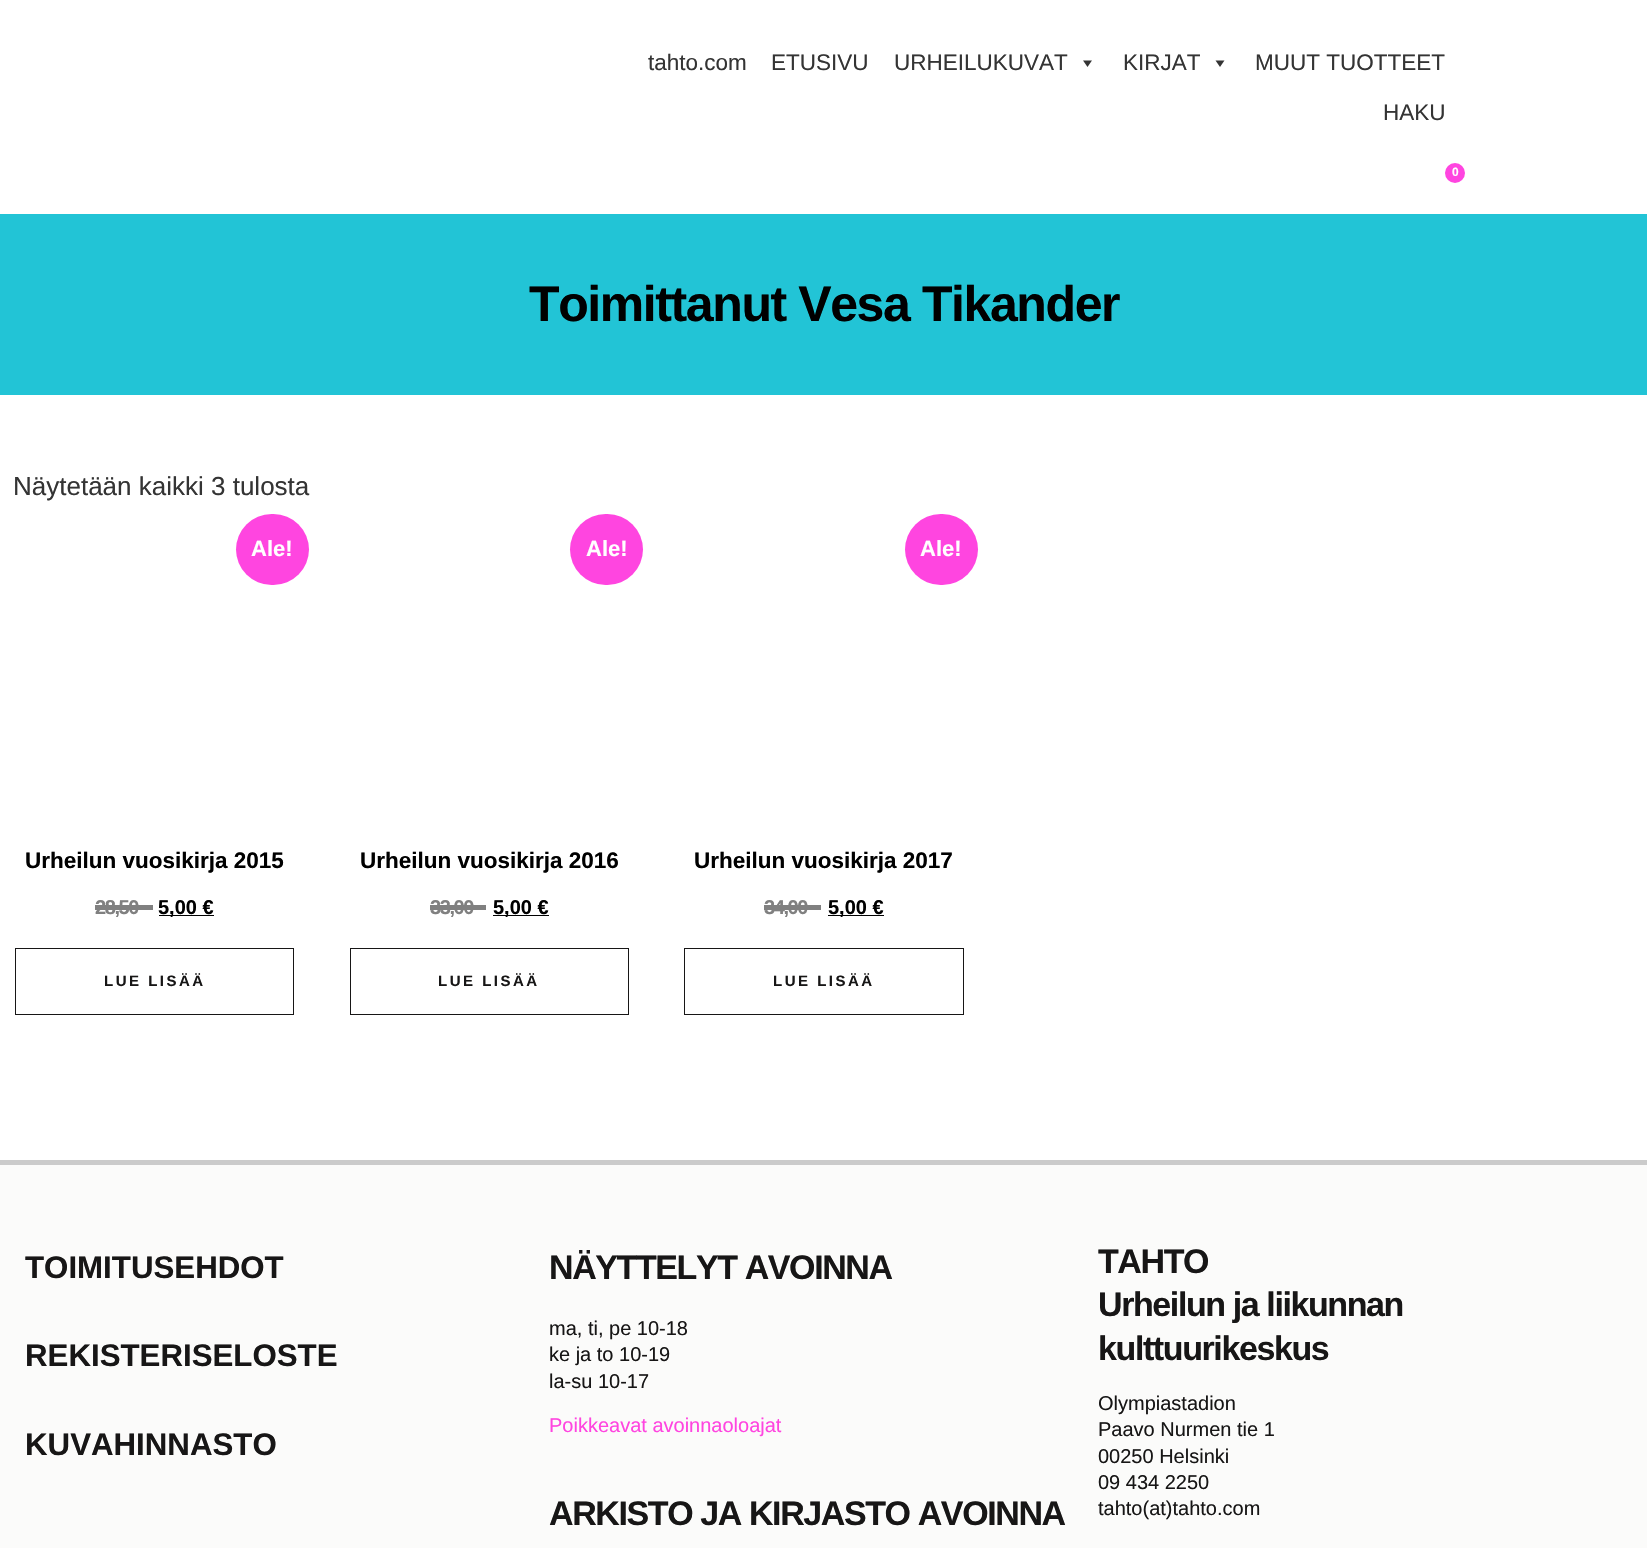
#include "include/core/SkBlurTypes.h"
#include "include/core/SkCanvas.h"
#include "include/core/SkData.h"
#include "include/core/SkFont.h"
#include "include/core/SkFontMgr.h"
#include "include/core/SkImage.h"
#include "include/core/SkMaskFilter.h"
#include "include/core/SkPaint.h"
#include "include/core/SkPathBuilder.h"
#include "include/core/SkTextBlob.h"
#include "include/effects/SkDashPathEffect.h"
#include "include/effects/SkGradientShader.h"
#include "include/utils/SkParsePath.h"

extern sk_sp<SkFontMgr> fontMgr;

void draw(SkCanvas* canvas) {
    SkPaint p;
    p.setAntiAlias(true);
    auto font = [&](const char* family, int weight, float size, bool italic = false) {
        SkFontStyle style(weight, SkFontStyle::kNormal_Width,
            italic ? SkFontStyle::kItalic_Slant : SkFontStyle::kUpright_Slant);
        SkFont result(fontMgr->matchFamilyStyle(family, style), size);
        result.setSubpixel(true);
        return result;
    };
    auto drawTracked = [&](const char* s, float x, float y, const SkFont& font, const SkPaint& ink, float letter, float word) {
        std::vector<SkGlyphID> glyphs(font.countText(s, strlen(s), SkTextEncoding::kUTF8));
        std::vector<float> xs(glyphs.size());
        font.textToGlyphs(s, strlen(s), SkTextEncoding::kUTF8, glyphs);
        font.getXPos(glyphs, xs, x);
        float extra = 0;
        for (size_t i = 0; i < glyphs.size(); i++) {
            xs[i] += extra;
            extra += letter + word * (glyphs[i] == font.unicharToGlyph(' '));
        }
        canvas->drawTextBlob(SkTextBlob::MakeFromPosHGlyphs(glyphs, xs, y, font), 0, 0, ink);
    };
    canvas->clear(0xFFFFFFFF);
    auto font1 = font("Liberation Sans", 400, 22.5f);
    p.setColor(0xFF343434);
    {
        const struct { const char* s; float x, y; } items[] = {
            {"tahto.com", 648, 70},
            {"ETUSIVU", 771, 70},
            {"URHEILUKUVAT", 894, 70},
        };
        for (auto [s, x, y] : items) {
            canvas->drawString(s, x, y, font1, p);
        }
    }
    canvas->drawPath(SkPathBuilder().moveTo(1092, 60.5f).lineTo(1087.5f, 67).lineTo(1083, 60.5f).close().detach(), p);
    canvas->drawString("KIRJAT", 1123, 70, font1, p);
    canvas->drawPath(SkPathBuilder().moveTo(1224.5f, 60.5f).lineTo(1220, 67).lineTo(1215.5f, 60.5f).close().detach(), p);
    canvas->drawString("MUUT TUOTTEET", 1255, 70, font1, p);
    canvas->drawString("HAKU", 1383, 120, font1, p);
    p.setColor(0xFFFF45E0);
    canvas->drawCircle(1455, 173, 10, p);
    auto font2 = font("Liberation Sans", 700, 12);
    p.setColor(0xFFFFFFFF);
    canvas->drawString("0", 1452, 176, font2, p);
    p.setColor(0xFF22C4D6);
    canvas->drawRect(SkRect::MakeLTRB(0, 214, 1647, 395), p);
    auto font3 = font("Liberation Sans", 700, 50);
    p.setColor(0xFF000000);
    drawTracked("Toimittanut Vesa Tikander", 529, 321, font3, p, -1.4f, 0);
    auto font4 = font("Liberation Sans", 400, 26);
    p.setColor(0xFF343434);
    canvas->drawString("Näytetään kaikki 3 tulosta", 13, 495, font4, p);
    p.setColor(0xFFFF45E0);
    canvas->drawRoundRect(SkRect::MakeLTRB(236, 514, 309, 585), 35.5f, 35.5f, p);
    auto font5 = font("Liberation Sans", 700, 22);
    p.setColor(0xFFFFFFFF);
    canvas->drawString("Ale!", 251, 556, font5, p);
    auto font6 = font("Liberation Sans", 700, 22.5f);
    p.setColor(0xFF000000);
    canvas->drawString("Urheilun vuosikirja 2015", 25, 868, font6, p);
    auto font7 = font("Liberation Sans", 700, 20);
    p.setColor(0xFF808080);
    drawTracked("28,50", 95, 914, font7, p, -1.4f, 0);
    canvas->drawRect(SkRect::MakeLTRB(95, 905, 153, 910), p);
    p.setColor(0xFF000000);
    canvas->drawRect(SkRect::MakeLTRB(159, 915, 214, 916), p);
    canvas->drawString("5,00 €", 158, 914, font7, p);
    p.setStyle(SkPaint::kStroke_Style);
    p.setStrokeWidth(1);
    p.setColor(0xFF171616);
    canvas->drawRect(SkRect::MakeLTRB(15.5f, 948.5f, 293.5f, 1014.5f), p);
    auto font8 = font("Liberation Sans", 700, 15);
    p.setStyle(SkPaint::kFill_Style);
    drawTracked("LUE LISÄÄ", 104, 986, font8, p, 2.5f, 0);
    p.setColor(0xFFFF45E0);
    canvas->drawRoundRect(SkRect::MakeLTRB(570, 514, 643, 585), 35.5f, 35.5f, p);
    p.setColor(0xFFFFFFFF);
    canvas->drawString("Ale!", 586, 556, font5, p);
    p.setColor(0xFF000000);
    canvas->drawString("Urheilun vuosikirja 2016", 360, 868, font6, p);
    p.setColor(0xFF808080);
    drawTracked("33,00", 430, 914, font7, p, -1.4f, 0);
    canvas->drawRect(SkRect::MakeLTRB(430, 905, 486, 910), p);
    p.setColor(0xFF000000);
    canvas->drawRect(SkRect::MakeLTRB(493, 915, 549, 916), p);
    canvas->drawString("5,00 €", 493, 914, font7, p);
    p.setStyle(SkPaint::kStroke_Style);
    p.setColor(0xFF171616);
    canvas->drawRect(SkRect::MakeLTRB(350.5f, 948.5f, 628.5f, 1014.5f), p);
    p.setStyle(SkPaint::kFill_Style);
    drawTracked("LUE LISÄÄ", 438, 986, font8, p, 2.5f, 0);
    p.setColor(0xFFFF45E0);
    canvas->drawRoundRect(SkRect::MakeLTRB(905, 514, 978, 585), 35.5f, 35.5f, p);
    p.setColor(0xFFFFFFFF);
    canvas->drawString("Ale!", 920, 556, font5, p);
    p.setColor(0xFF000000);
    canvas->drawString("Urheilun vuosikirja 2017", 694, 868, font6, p);
    p.setColor(0xFF808080);
    drawTracked("34,00", 764, 914, font7, p, -1.4f, 0);
    canvas->drawRect(SkRect::MakeLTRB(764, 905, 821, 910), p);
    p.setColor(0xFF000000);
    canvas->drawRect(SkRect::MakeLTRB(828, 915, 884, 916), p);
    canvas->drawString("5,00 €", 828, 914, font7, p);
    p.setStyle(SkPaint::kStroke_Style);
    p.setColor(0xFF171616);
    canvas->drawRect(SkRect::MakeLTRB(684.5f, 948.5f, 963.5f, 1014.5f), p);
    p.setStyle(SkPaint::kFill_Style);
    drawTracked("LUE LISÄÄ", 773, 986, font8, p, 2.5f, 0);
    p.setColor(0xFFCBCBCB);
    canvas->drawRect(SkRect::MakeLTRB(0, 1160, 1647, 1165), p);
    p.setColor(0xFFFBFBFA);
    canvas->drawRect(SkRect::MakeLTRB(0, 1165, 1647, 1548), p);
    auto font9 = font("Liberation Sans", 700, 31.25f);
    p.setColor(0xFF171616);
    {
        const struct { const char* s; float x, y; } items[] = {
            {"TOIMITUSEHDOT", 25, 1278},
            {"REKISTERISELOSTE", 25, 1366},
            {"KUVAHINNASTO", 25, 1455},
        };
        for (auto [s, x, y] : items) {
            canvas->drawString(s, x, y, font9, p);
        }
    }
    auto font10 = font("Liberation Sans", 700, 34);
    drawTracked("NÄYTTELYT AVOINNA", 549, 1279, font10, p, -1.4f, 0);
    auto font11 = font("Liberation Sans", 400, 20);
    {
        const struct { const char* s; float x, y; } items[] = {
            {"ma, ti, pe 10-18", 549, 1335},
            {"ke ja to 10-19", 549, 1361},
            {"la-su 10-17", 549, 1388},
        };
        for (auto [s, x, y] : items) {
            canvas->drawString(s, x, y, font11, p);
        }
    }
    p.setColor(0xFFFF45E0);
    canvas->drawString("Poikkeavat avoinnaoloajat", 549, 1432, font11, p);
    p.setColor(0xFF171616);
    {
        const struct { const char* s; float x, y; } items[] = {
            {"ARKISTO JA KIRJASTO AVOINNA", 549, 1525},
            {"TAHTO", 1098, 1273},
            {"Urheilun ja liikunnan", 1098, 1316},
            {"kulttuurikeskus", 1098, 1360},
        };
        for (auto [s, x, y] : items) {
            drawTracked(s, x, y, font10, p, -1.4f, 0);
        }
    }
    {
        const struct { const char* s; float x, y; } items[] = {
            {"Olympiastadion", 1098, 1410},
            {"Paavo Nurmen tie 1", 1098, 1436},
            {"00250 Helsinki", 1098, 1463},
            {"09 434 2250", 1098, 1489},
            {"tahto(at)tahto.com", 1098, 1515},
        };
        for (auto [s, x, y] : items) {
            canvas->drawString(s, x, y, font11, p);
        }
    }
}
